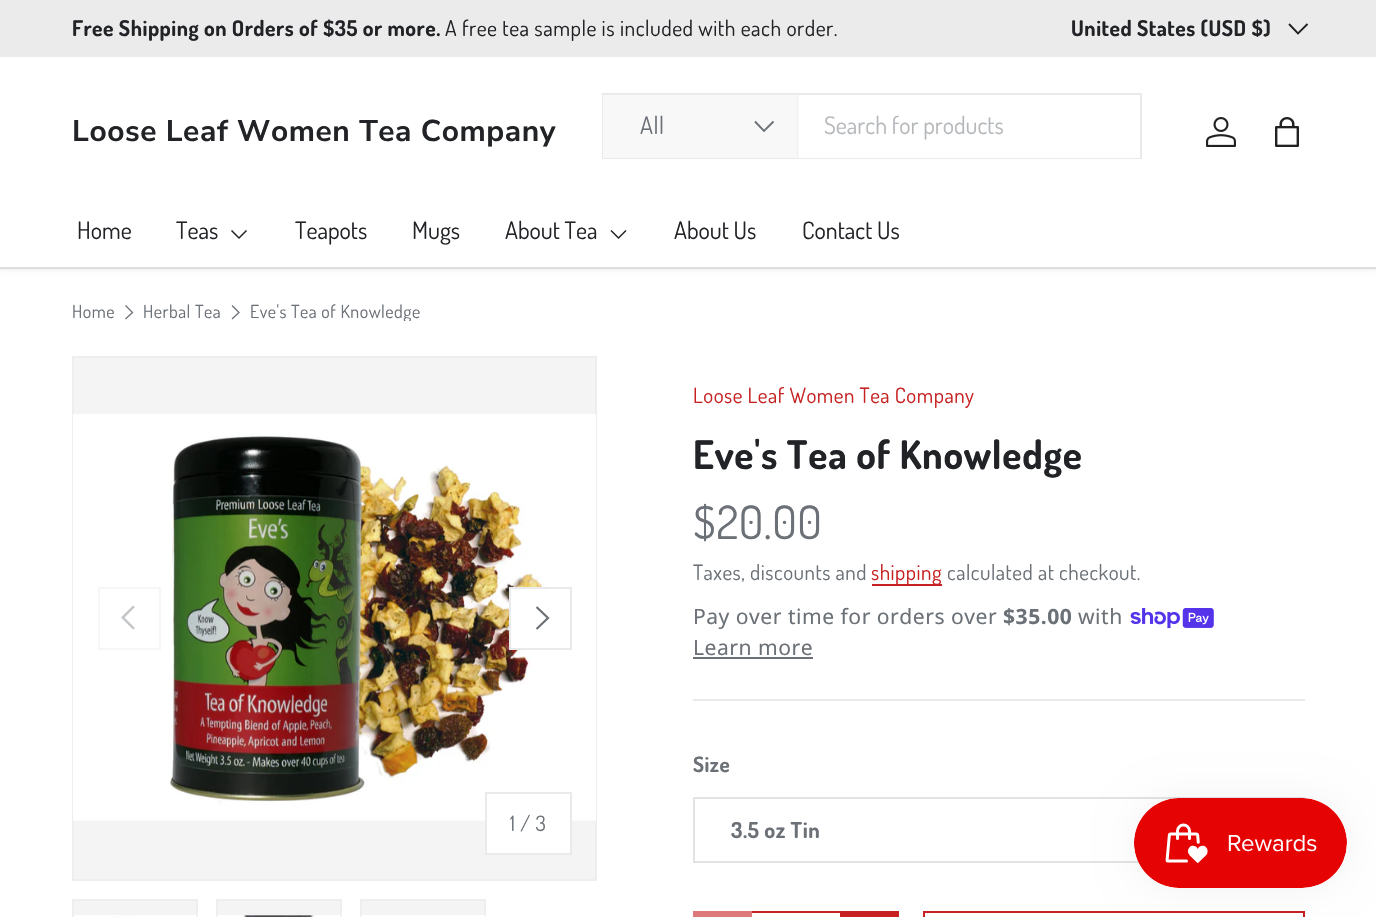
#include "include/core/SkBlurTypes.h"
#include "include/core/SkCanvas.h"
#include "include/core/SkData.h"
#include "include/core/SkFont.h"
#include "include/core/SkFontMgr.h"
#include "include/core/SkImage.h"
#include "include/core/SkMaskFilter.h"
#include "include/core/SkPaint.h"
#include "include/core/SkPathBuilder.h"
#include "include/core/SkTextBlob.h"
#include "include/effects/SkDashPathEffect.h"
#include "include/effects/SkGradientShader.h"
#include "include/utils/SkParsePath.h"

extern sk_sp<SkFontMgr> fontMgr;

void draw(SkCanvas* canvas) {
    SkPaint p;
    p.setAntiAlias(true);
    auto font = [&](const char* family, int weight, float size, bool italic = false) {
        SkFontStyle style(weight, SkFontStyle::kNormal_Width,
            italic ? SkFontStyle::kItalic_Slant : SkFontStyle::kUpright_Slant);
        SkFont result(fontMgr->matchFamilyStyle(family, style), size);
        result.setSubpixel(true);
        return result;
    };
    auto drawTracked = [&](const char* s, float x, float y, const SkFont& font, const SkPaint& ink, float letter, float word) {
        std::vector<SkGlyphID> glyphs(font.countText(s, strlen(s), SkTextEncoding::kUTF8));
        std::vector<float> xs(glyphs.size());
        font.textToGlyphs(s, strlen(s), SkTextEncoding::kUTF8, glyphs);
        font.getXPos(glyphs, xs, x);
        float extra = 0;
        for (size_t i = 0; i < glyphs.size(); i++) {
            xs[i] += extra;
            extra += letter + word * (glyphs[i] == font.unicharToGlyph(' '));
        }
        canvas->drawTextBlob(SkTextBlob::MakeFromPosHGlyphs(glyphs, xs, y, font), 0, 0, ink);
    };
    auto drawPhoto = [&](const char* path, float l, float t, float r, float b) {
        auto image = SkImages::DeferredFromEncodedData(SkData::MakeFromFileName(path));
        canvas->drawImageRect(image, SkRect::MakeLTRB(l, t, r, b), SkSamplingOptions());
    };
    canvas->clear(0xFFFFFFFF);
    p.setColor(0x14000000);
    p.setMaskFilter(SkMaskFilter::MakeBlur(kNormal_SkBlurStyle, 2));
    canvas->drawRect(SkRect::MakeLTRB(-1, 56, 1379, 270), p);
    p.setMaskFilter(nullptr);
    p.setColor(0xFFEBEBEB);
    canvas->drawRect(SkRect::MakeLTRB(0, 0, 1376, 57), p);
    auto font1 = font("Dosis", 700, 21.6f);
    p.setColor(0xFF212326);
    drawTracked("Free Shipping on Orders of $35 or more.", 72, 36, font1, p, 0.5f, 0);
    auto font2 = font("Dosis", 400, 21.6f);
    drawTracked("A free tea sample is included with each order.", 445, 36, font2, p, 0.5f, 0);
    drawTracked("United States (USD $)", 1071, 36, font1, p, 0.5f, 0);
    p.setStyle(SkPaint::kStroke_Style);
    p.setStrokeWidth(1.9f);
    p.setColor(0xFF222222);
    canvas->drawPath(SkPathBuilder().moveTo(1307.5f, 24).lineTo(1298, 33.5f).lineTo(1289, 24).detach(), p);
    p.setStyle(SkPaint::kFill_Style);
    p.setColor(0xFFFFFFFF);
    canvas->drawRect(SkRect::MakeLTRB(0, 57, 1376, 267), p);
    auto font3 = font("Nunito Sans", 700, 29.9f);
    p.setColor(0xFF212326);
    drawTracked("Loose Leaf Women Tea Company", 72, 141, font3, p, 0.6f, 0);
    p.setStyle(SkPaint::kStroke_Style);
    p.setStrokeWidth(2);
    p.setColor(0xFFE9EAEB);
    canvas->drawRect(SkRect::MakeLTRB(603, 94, 1141, 158), p);
    p.setStyle(SkPaint::kFill_Style);
    {
        const struct { float l, t, r, b; SkColor color; } items[] = {
            {603, 95, 798, 158, 0xFFF8F8F8},
            {798, 157, 1140, 158, 0xFFFFFFFF},
            {797, 95, 799, 158, 0x0D6B7177},
        };
        for (auto [l, t, r, b, color] : items) {
            p.setColor(color);
            canvas->drawRect(SkRect::MakeLTRB(l, t, r, b), p);
        }
    }
    auto font4 = font("Dosis", 400, 24);
    p.setColor(0xFF6B7177);
    drawTracked("All", 640, 134, font4, p, 0.5f, 0);
    p.setStyle(SkPaint::kStroke_Style);
    p.setStrokeWidth(1.9f);
    canvas->drawPath(SkPathBuilder().moveTo(773.5f, 121.5f).lineTo(764, 131).lineTo(755, 121.5f).detach(), p);
    p.setStyle(SkPaint::kFill_Style);
    p.setColor(0xFFB5B8BB);
    canvas->drawString("Search for products", 824, 134, font4, p);
    drawPhoto("media/1.png", 1206, 117, 1236, 147);
    drawPhoto("media/2.png", 1275, 117, 1299, 147);
    p.setColor(0xFF212326);
    canvas->drawString("Home", 77, 239, font4, p);
    canvas->drawString("Teas", 176, 239, font4, p);
    p.setStyle(SkPaint::kStroke_Style);
    p.setStrokeWidth(1.5f);
    p.setColor(0xFF222222);
    canvas->drawPath(SkPathBuilder().moveTo(246.5f, 230.5f).lineTo(239, 238).lineTo(231.5f, 230.5f).detach(), p);
    p.setStyle(SkPaint::kFill_Style);
    p.setColor(0xFF212326);
    {
        const struct { const char* s; float x, y; } items[] = {
            {"Teapots", 295, 239},
            {"Mugs", 412, 239},
            {"About Tea", 505, 239},
        };
        for (auto [s, x, y] : items) {
            canvas->drawString(s, x, y, font4, p);
        }
    }
    p.setStyle(SkPaint::kStroke_Style);
    p.setColor(0xFF222222);
    canvas->drawPath(SkPathBuilder().moveTo(626, 230.5f).lineTo(618.5f, 238).lineTo(611, 230.5f).detach(), p);
    p.setStyle(SkPaint::kFill_Style);
    p.setColor(0xFF212326);
    canvas->drawString("About Us", 674, 239, font4, p);
    canvas->drawString("Contact Us", 802, 239, font4, p);
    p.setColor(0xFFDEDEDE);
    canvas->drawRect(SkRect::MakeLTRB(0, 267, 1376, 269), p);
    auto font5 = font("Dosis", 400, 18);
    p.setColor(0xFF6B7177);
    drawTracked("Home", 72, 318, font5, p, 0.5f, 0);
    p.setStyle(SkPaint::kStroke_Style);
    p.setStrokeWidth(1.3f);
    canvas->drawPath(SkPathBuilder().moveTo(125.5f, 305.5f).lineTo(132.5f, 312.5f).lineTo(125.5f, 319).detach(), p);
    p.setStyle(SkPaint::kFill_Style);
    drawTracked("Herbal Tea", 143, 318, font5, p, 0.5f, 0);
    p.setStyle(SkPaint::kStroke_Style);
    canvas->drawPath(SkPathBuilder().moveTo(232, 305.5f).lineTo(239, 312.5f).lineTo(232, 319).detach(), p);
    canvas->save();
    canvas->clipRect(SkRect::MakeLTRB(249, 303, 420, 321));
    p.setStyle(SkPaint::kFill_Style);
    drawTracked("Eve's Tea of Knowledge", 250, 318, font5, p, 0.5f, 0);
    canvas->restore();
    p.setColor(0xFFF4F4F4);
    canvas->drawRect(SkRect::MakeLTRB(73, 357, 596, 880), p);
    p.setStyle(SkPaint::kStroke_Style);
    p.setStrokeWidth(2);
    p.setColor(0xFFEEEEEE);
    canvas->drawRect(SkRect::MakeLTRB(73, 357, 596, 880), p);
    drawPhoto("media/3.png", 73, 414, 596, 821);
    p.setColor(0xFFF6F6F7);
    canvas->drawRect(SkRect::MakeLTRB(99, 588, 160, 649), p);
    p.setStyle(SkPaint::kFill_Style);
    p.setColor(0xFFC4C6C9);
    canvas->drawPath(SkPathBuilder().moveTo(121, 617.5f).lineTo(133, 605.5f).lineTo(135, 607).lineTo(124.5f, 617.5f).lineTo(135, 628).lineTo(133, 629.5f).close().detach(), p);
    p.setColor(0xFFFFFFFF);
    canvas->drawRect(SkRect::MakeLTRB(511, 589, 543, 648), p);
    p.setStyle(SkPaint::kStroke_Style);
    p.setColor(0xFFE9EAEB);
    canvas->drawRect(SkRect::MakeLTRB(510, 588, 571, 649), p);
    p.setStrokeWidth(2.2f);
    p.setColor(0xFF6B7177);
    canvas->drawPath(SkPathBuilder().moveTo(536.5f, 607).lineTo(548, 618).lineTo(536.5f, 629).detach(), p);
    p.setStyle(SkPaint::kFill_Style);
    p.setColor(0xFFFFFFFF);
    canvas->drawRect(SkRect::MakeLTRB(487, 820, 570, 853), p);
    p.setStyle(SkPaint::kStroke_Style);
    p.setStrokeWidth(2);
    p.setColor(0xFFE9EAEB);
    canvas->drawRect(SkRect::MakeLTRB(486, 793, 571, 854), p);
    auto font6 = font("Dosis", 400, 21.1f);
    p.setStyle(SkPaint::kFill_Style);
    p.setColor(0xFF6B7177);
    drawTracked("1 / 3", 510, 831, font6, p, 0.5f, 0);
    p.setColor(0xFFF4F4F4);
    canvas->drawRect(SkRect::MakeLTRB(74, 901, 196, 915), p);
    p.setStyle(SkPaint::kStroke_Style);
    p.setColor(0xFFEEEEEE);
    canvas->drawRect(SkRect::MakeLTRB(73, 900, 197, 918), p);
    drawPhoto("media/4.png", 74, 915, 197, 917);
    p.setStyle(SkPaint::kFill_Style);
    p.setColor(0xFFF4F4F4);
    canvas->drawRect(SkRect::MakeLTRB(218, 901, 340, 915), p);
    p.setStyle(SkPaint::kStroke_Style);
    p.setColor(0xFFEEEEEE);
    canvas->drawRect(SkRect::MakeLTRB(217, 900, 341, 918), p);
    drawPhoto("media/5.png", 217, 915, 341, 917);
    p.setStyle(SkPaint::kFill_Style);
    p.setColor(0xFFF4F4F4);
    canvas->drawRect(SkRect::MakeLTRB(362, 901, 484, 915), p);
    p.setStyle(SkPaint::kStroke_Style);
    p.setColor(0xFFEEEEEE);
    canvas->drawRect(SkRect::MakeLTRB(361, 900, 485, 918), p);
    drawPhoto("media/6.png", 361, 915, 485, 917);
    p.setStyle(SkPaint::kFill_Style);
    p.setColor(0xFFC62020);
    drawTracked("Loose Leaf Women Tea Company", 693, 403, font6, p, 0.5f, 0);
    auto font7 = font("Dosis", 700, 39.5f);
    p.setColor(0xFF212326);
    drawTracked("Eve's Tea of Knowledge", 693, 469, font7, p, 0.75f, 0);
    auto font8 = font("Dosis", 400, 46);
    p.setColor(0xFF6B7177);
    drawTracked("$20.00", 693, 539, font8, p, 0.5f, 0);
    drawTracked("Taxes, discounts and", 693, 580, font6, p, 0.5f, 0);
    p.setColor(0xFFC62020);
    canvas->drawRect(SkRect::MakeLTRB(872, 584, 942, 586), p);
    drawTracked("shipping", 871, 580, font6, p, 0.5f, 0);
    p.setColor(0xFF6B7177);
    drawTracked("calculated at checkout.", 947, 580, font6, p, 0.5f, 0);
    auto font9 = font("Noto Sans", 400, 21.1f);
    drawTracked("Pay over time for orders over", 693, 624, font9, p, 0.5f, 0);
    auto font10 = font("Noto Sans", 700, 21.1f);
    drawTracked("$35.00", 1003, 624, font10, p, 0.5f, 0);
    drawTracked("with", 1078, 624, font9, p, 0.5f, 0);
    drawPhoto("media/7.png", 1130, 608, 1214, 629);
    drawTracked("Learn more", 693, 655, font9, p, 0.5f, 0);
    canvas->drawRect(SkRect::MakeLTRB(693, 657, 813, 659), p);
    p.setColor(0xFFE9EAEB);
    canvas->drawRect(SkRect::MakeLTRB(693, 699, 1305, 701), p);
    auto font11 = font("Dosis", 700, 21.1f);
    p.setColor(0xFF6B7177);
    drawTracked("Size", 693, 772, font11, p, 0.5f, 0);
    p.setStyle(SkPaint::kStroke_Style);
    p.setColor(0xFFE1E3E4);
    canvas->drawRect(SkRect::MakeLTRB(694, 798, 1304, 862), p);
    auto font12 = font("Dosis", 700, 22);
    p.setStyle(SkPaint::kFill_Style);
    p.setColor(0xFF6B7177);
    drawTracked("3.5 oz Tin", 731, 838, font12, p, 0.5f, 0);
    {
        const struct { float l, t, r, b; SkColor color; } items[] = {
            {693, 911, 752, 917, 0xFFDD7979},
            {752, 911, 840, 913, 0xFFC62020},
            {840, 911, 899, 917, 0xFFC62020},
        };
        for (auto [l, t, r, b, color] : items) {
            p.setColor(color);
            canvas->drawRect(SkRect::MakeLTRB(l, t, r, b), p);
        }
    }
    p.setStyle(SkPaint::kStroke_Style);
    canvas->drawRect(SkRect::MakeLTRB(924, 912, 1304, 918), p);
    p.setStyle(SkPaint::kFill_Style);
    p.setColor(0x0D000000);
    p.setMaskFilter(SkMaskFilter::MakeBlur(kNormal_SkBlurStyle, 19));
    canvas->drawRoundRect(SkRect::MakeLTRB(1134, 798, 1347, 888), 45, 45, p);
    p.setMaskFilter(nullptr);
    drawPhoto("media/8.png", 1134, 798, 1347, 888);
}
